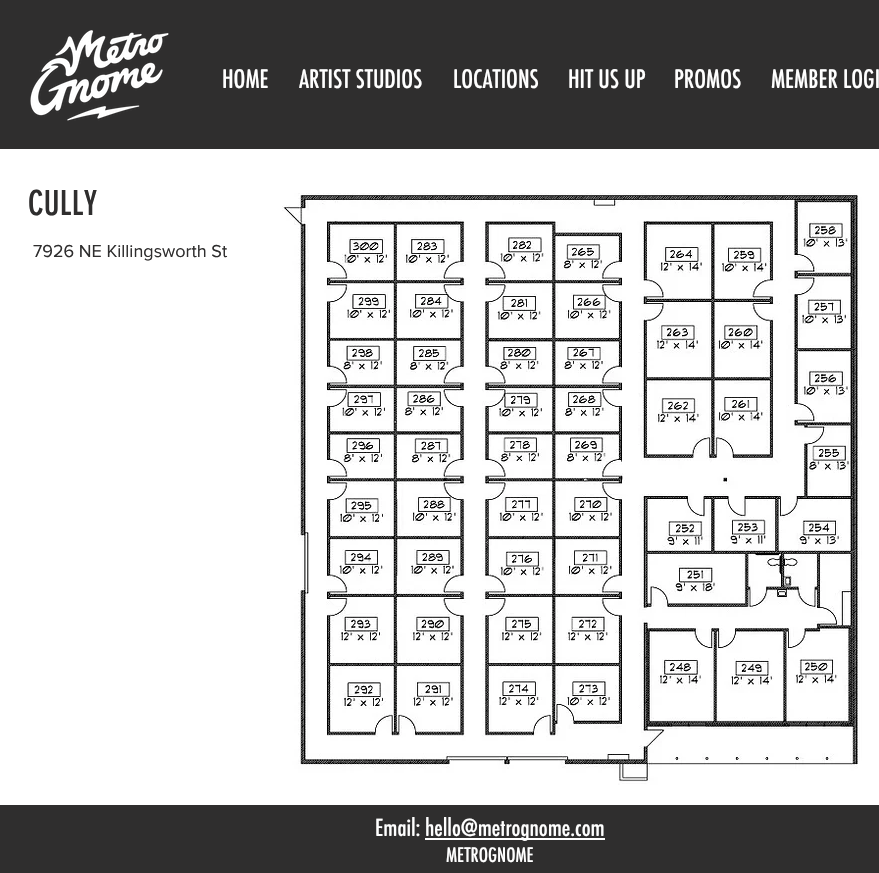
#include "include/core/SkBlurTypes.h"
#include "include/core/SkCanvas.h"
#include "include/core/SkData.h"
#include "include/core/SkFont.h"
#include "include/core/SkFontMgr.h"
#include "include/core/SkImage.h"
#include "include/core/SkMaskFilter.h"
#include "include/core/SkPaint.h"
#include "include/core/SkPathBuilder.h"
#include "include/core/SkTextBlob.h"
#include "include/effects/SkDashPathEffect.h"
#include "include/effects/SkGradientShader.h"
#include "include/utils/SkParsePath.h"

extern sk_sp<SkFontMgr> fontMgr;

void draw(SkCanvas* canvas) {
    SkPaint p;
    p.setAntiAlias(true);
    auto font = [&](const char* family, int weight, float size, bool italic = false) {
        SkFontStyle style(weight, SkFontStyle::kNormal_Width,
            italic ? SkFontStyle::kItalic_Slant : SkFontStyle::kUpright_Slant);
        SkFont result(fontMgr->matchFamilyStyle(family, style), size);
        result.setSubpixel(true);
        return result;
    };
    auto drawPhoto = [&](const char* path, float l, float t, float r, float b) {
        auto image = SkImages::DeferredFromEncodedData(SkData::MakeFromFileName(path));
        canvas->drawImageRect(image, SkRect::MakeLTRB(l, t, r, b), SkSamplingOptions());
    };
    canvas->clear(0xFFFFFFFF);
    p.setColor(0xFF2F2E2E);
    canvas->drawRect(SkRect::MakeLTRB(0, 0, 879, 149), p);
    drawPhoto("media/1.png", 30, 30, 169, 121);
    auto font1 = font("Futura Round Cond", 500, 28);
    p.setColor(0xFFFFFFFF);
    {
        const struct { const char* s; float x, y; } items[] = {
            {"HOME", 222, 88},
            {"ARTIST STUDIOS", 299, 88},
            {"LOCATIONS", 453, 88},
            {"HIT US UP", 568, 88},
            {"PROMOS", 674, 88},
            {"MEMBER LOGI", 771, 88},
        };
        for (auto [s, x, y] : items) {
            canvas->drawString(s, x, y, font1, p);
        }
    }
    auto font2 = font("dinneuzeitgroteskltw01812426", 400, 34);
    p.setColor(0xFF2F2E2E);
    canvas->drawString("CULLY", 28, 215, font2, p);
    auto font3 = font("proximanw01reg", 400, 18);
    canvas->drawString("7926 NE Killingsworth St", 33, 257, font3, p);
    drawPhoto("media/2.png", 282, 193, 862, 785);
    canvas->drawRect(SkRect::MakeLTRB(0, 805, 879, 873), p);
    auto font4 = font("Futura Round Cond", 500, 26);
    p.setColor(0xFFFFFFFF);
    canvas->drawString("Email:", 375, 836, font4, p);
    canvas->drawRect(SkRect::MakeLTRB(425, 838, 605, 840), p);
    canvas->drawString("hello@metrognome.com", 425, 836, font4, p);
    auto font5 = font("Futura Round Cond", 500, 22);
    canvas->drawString("METROGNOME", 446, 862, font5, p);
}
